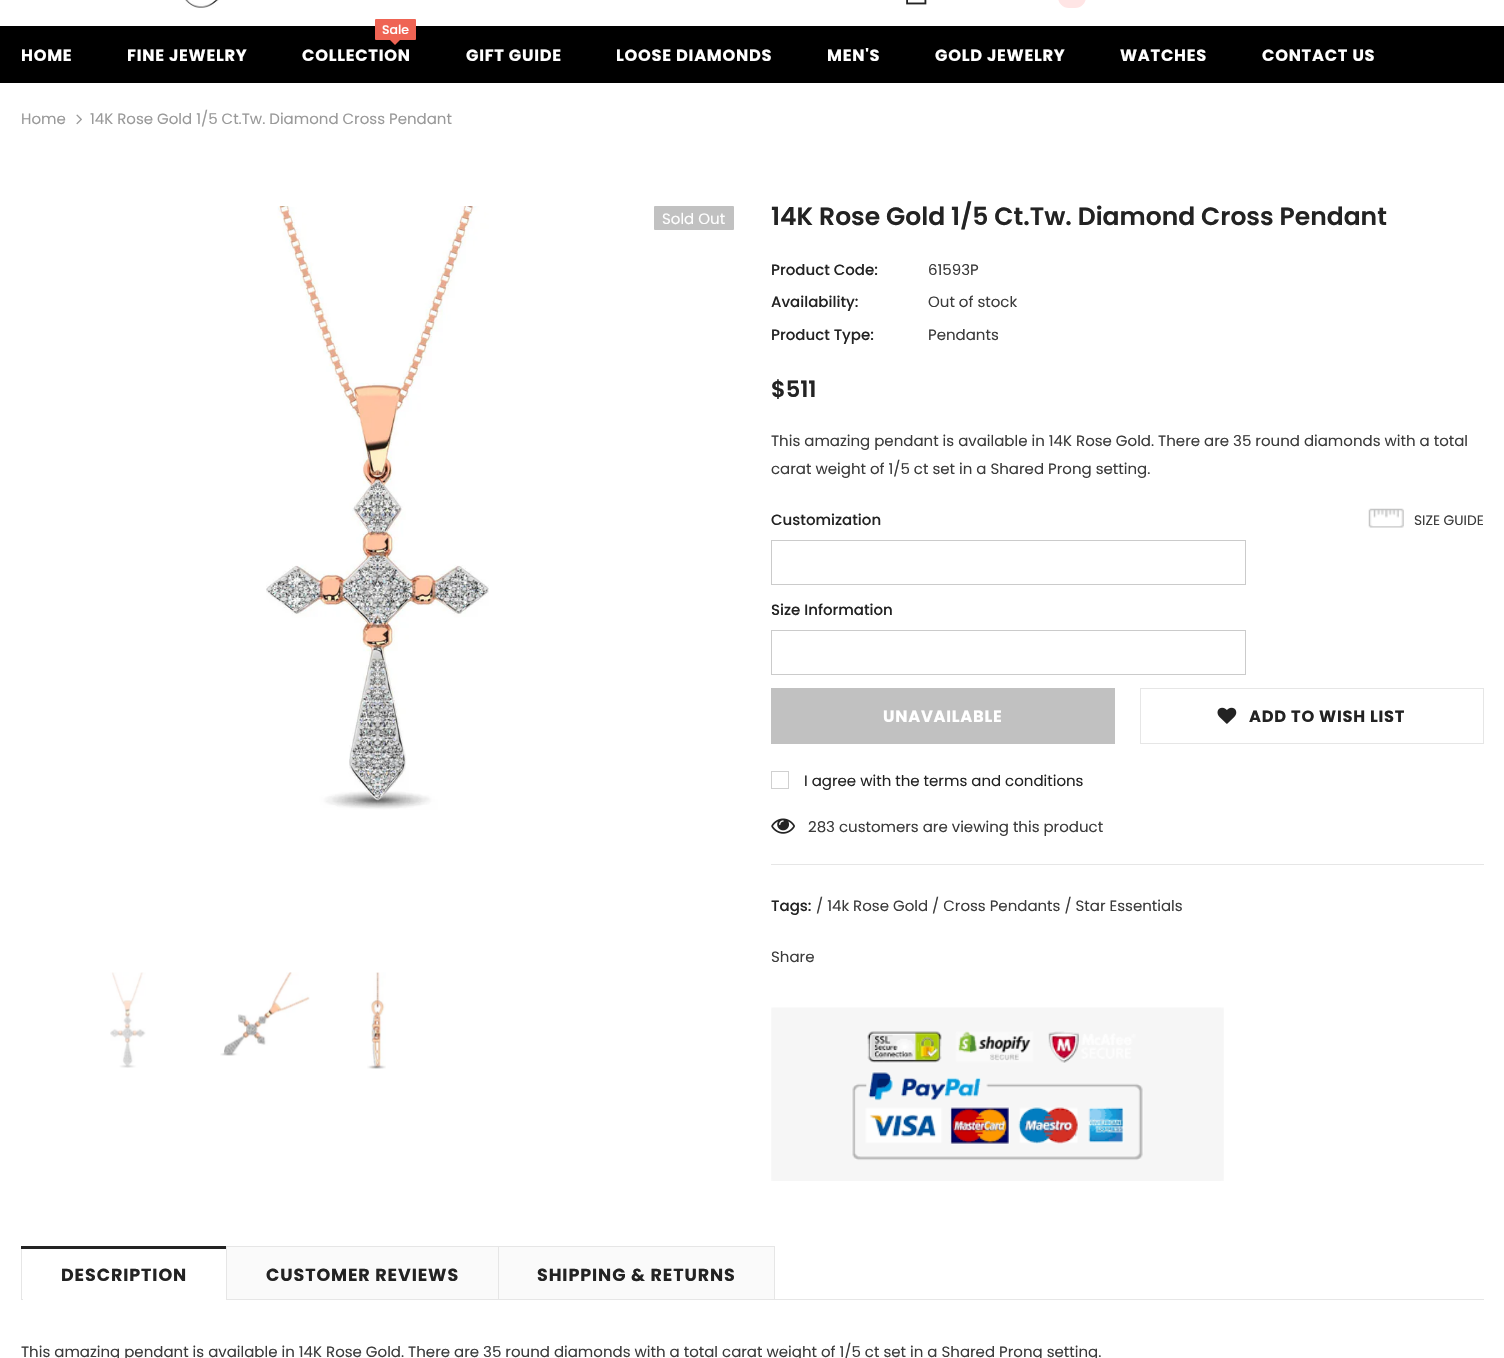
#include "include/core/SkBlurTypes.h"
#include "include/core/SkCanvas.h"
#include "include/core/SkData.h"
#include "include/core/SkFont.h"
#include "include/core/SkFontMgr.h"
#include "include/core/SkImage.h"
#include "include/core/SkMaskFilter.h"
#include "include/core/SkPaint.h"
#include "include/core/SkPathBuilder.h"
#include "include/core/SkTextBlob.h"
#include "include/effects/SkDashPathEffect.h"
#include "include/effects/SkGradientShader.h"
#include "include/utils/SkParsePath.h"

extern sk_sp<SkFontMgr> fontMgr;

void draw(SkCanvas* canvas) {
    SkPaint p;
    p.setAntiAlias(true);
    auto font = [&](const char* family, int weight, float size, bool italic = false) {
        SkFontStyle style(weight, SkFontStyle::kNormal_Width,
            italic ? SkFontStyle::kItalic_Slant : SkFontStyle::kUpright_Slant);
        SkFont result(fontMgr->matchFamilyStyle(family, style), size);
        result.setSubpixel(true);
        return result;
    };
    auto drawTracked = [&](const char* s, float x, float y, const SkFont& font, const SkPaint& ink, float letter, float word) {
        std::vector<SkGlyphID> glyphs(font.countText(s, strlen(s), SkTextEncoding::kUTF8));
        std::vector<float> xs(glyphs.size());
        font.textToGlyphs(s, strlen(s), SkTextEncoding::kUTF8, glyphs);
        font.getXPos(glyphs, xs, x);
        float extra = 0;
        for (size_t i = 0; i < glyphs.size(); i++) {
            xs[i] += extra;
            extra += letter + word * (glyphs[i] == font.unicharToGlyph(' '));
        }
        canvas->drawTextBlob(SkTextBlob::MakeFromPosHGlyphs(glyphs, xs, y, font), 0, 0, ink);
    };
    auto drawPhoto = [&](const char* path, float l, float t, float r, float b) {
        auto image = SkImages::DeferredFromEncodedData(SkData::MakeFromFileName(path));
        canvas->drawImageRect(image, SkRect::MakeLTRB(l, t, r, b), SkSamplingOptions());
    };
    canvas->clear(0xFFFFFFFF);
    drawPhoto("media/1.png", 185, 0, 219, 8);
    drawPhoto("media/2.png", 906, 0, 927, 5);
    p.setColor(0xFFFFE5E5);
    canvas->drawRoundRect(SkRect::MakeLTRB(1058, -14, 1086, 8), 14, 14, p);
    p.setColor(0xFF000000);
    canvas->drawRect(SkRect::MakeLTRB(0, 26, 1504, 83), p);
    auto font1 = font("Poppins", 700, 16.25f);
    p.setColor(0xFFFFFFFF);
    drawTracked("HOME", 21, 61, font1, p, 0.75f, 0);
    drawTracked("FINE JEWELRY", 127, 61, font1, p, 0.75f, 0);
    p.setColor(0xFFEF6454);
    canvas->drawRoundRect(SkRect::MakeLTRB(375, 19, 416, 40), 1, 1, p);
    auto font2 = font("Poppins", 500, 12.5f);
    p.setColor(0xFFFFFFFF);
    canvas->drawString("Sale", 382, 34, font2, p);
    p.setColor(0xFFEF6454);
    canvas->drawPath(SkPathBuilder().moveTo(389, 39).lineTo(401, 39).lineTo(395, 45).close().detach(), p);
    p.setColor(0xFFFFFFFF);
    {
        const struct { const char* s; float x, y; } items[] = {
            {"COLLECTION", 302, 61},
            {"GIFT GUIDE", 466, 61},
            {"LOOSE DIAMONDS", 616, 61},
            {"MEN'S", 827, 61},
            {"GOLD JEWELRY", 935, 61},
            {"WATCHES", 1120, 61},
            {"CONTACT US", 1262, 61},
        };
        for (auto [s, x, y] : items) {
            drawTracked(s, x, y, font1, p, 0.75f, 0);
        }
    }
    auto font3 = font("Poppins", 400, 15);
    p.setColor(0xFF999999);
    canvas->drawString("Home", 21, 124, font3, p);
    drawPhoto("media/3.png", 76, 114, 82, 125);
    canvas->drawString("14K Rose Gold 1/5 Ct.Tw. Diamond Cross Pendant", 90, 124, font3, p);
    drawPhoto("media/4.png", 266, 206, 489, 810);
    p.setColor(0xFFC1C1C1);
    canvas->drawRoundRect(SkRect::MakeLTRB(654, 206, 734, 230), 1, 1, p);
    p.setColor(0xFFFFFFFF);
    canvas->drawString("Sold Out", 662, 224, font3, p);
    drawPhoto("media/5.png", 110, 972, 146, 1068);
    drawPhoto("media/6.png", 220, 972, 310, 1056);
    drawPhoto("media/7.png", 367, 972, 386, 1069);
    auto font4 = font("Poppins", 600, 25);
    p.setColor(0xFF232323);
    canvas->drawString("14K Rose Gold 1/5 Ct.Tw. Diamond Cross Pendant", 771, 225, font4, p);
    auto font5 = font("Poppins", 500, 15);
    canvas->drawString("Product Code:", 771, 275, font5, p);
    p.setColor(0xFF3C3C3C);
    canvas->drawString("61593P", 928, 275, font3, p);
    p.setColor(0xFF232323);
    canvas->drawString("Availability:", 771, 307, font5, p);
    p.setColor(0xFF3C3C3C);
    canvas->drawString("Out of stock", 928, 307, font3, p);
    p.setColor(0xFF232323);
    canvas->drawString("Product Type:", 771, 340, font5, p);
    p.setColor(0xFF3C3C3C);
    canvas->drawString("Pendants", 928, 340, font3, p);
    auto font6 = font("Poppins", 600, 22.5f);
    p.setColor(0xFF232323);
    canvas->drawString("$511", 771, 397, font6, p);
    p.setColor(0xFF3C3C3C);
    canvas->drawString("This amazing pendant is available in 14K Rose Gold. There are 35 round diamonds with a total", 771, 446, font3, p);
    canvas->drawString("carat weight of 1/5 ct set in a Shared Prong setting.", 771, 474, font3, p);
    p.setColor(0xFF232323);
    canvas->drawString("Customization", 771, 525, font5, p);
    p.setStyle(SkPaint::kStroke_Style);
    p.setStrokeWidth(1);
    p.setColor(0xFFCBCBCB);
    canvas->drawRect(SkRect::MakeLTRB(771.5f, 540.5f, 1245.5f, 584.5f), p);
    drawPhoto("media/8.png", 1368, 508, 1404, 528);
    auto font7 = font("Poppins", 400, 13.75f);
    p.setStyle(SkPaint::kFill_Style);
    p.setColor(0xFF3C3C3C);
    canvas->drawString("SIZE GUIDE", 1414, 525, font7, p);
    p.setColor(0xFF232323);
    canvas->drawString("Size Information", 771, 615, font5, p);
    p.setStyle(SkPaint::kStroke_Style);
    p.setColor(0xFFCBCBCB);
    canvas->drawRect(SkRect::MakeLTRB(771.5f, 630.5f, 1245.5f, 674.5f), p);
    p.setStyle(SkPaint::kFill_Style);
    p.setColor(0xFFC1C1C1);
    canvas->drawRect(SkRect::MakeLTRB(771, 688, 1115, 744), p);
    p.setColor(0xFFFFFFFF);
    drawTracked("UNAVAILABLE", 883, 722, font1, p, 0.75f, 0);
    p.setStyle(SkPaint::kStroke_Style);
    p.setColor(0xFFE6E6E6);
    canvas->drawRect(SkRect::MakeLTRB(1140.5f, 688.5f, 1483.5f, 743.5f), p);
    drawPhoto("media/9.png", 1217, 707, 1237, 724);
    p.setStyle(SkPaint::kFill_Style);
    p.setColor(0xFF232323);
    drawTracked("ADD TO WISH LIST", 1249, 722, font1, p, 0.75f, 0);
    p.setStyle(SkPaint::kStroke_Style);
    p.setColor(0xFFD0D0D0);
    canvas->drawRect(SkRect::MakeLTRB(771.5f, 771.5f, 788.5f, 788.5f), p);
    p.setStyle(SkPaint::kFill_Style);
    p.setColor(0xFF232323);
    canvas->drawString("I agree with the terms and conditions", 804, 786, font3, p);
    p.setColor(0xFFE6E6E6);
    canvas->drawRect(SkRect::MakeLTRB(771, 864, 1484, 865), p);
    drawPhoto("media/10.png", 771, 818, 795, 834);
    p.setColor(0xFF3C3C3C);
    canvas->drawString("283 customers are viewing this product", 808, 832, font3, p);
    p.setColor(0xFF232323);
    canvas->drawString("Tags:", 771, 911, font5, p);
    p.setColor(0xFF3C3C3C);
    canvas->drawString("/ 14k Rose Gold / Cross Pendants / Star Essentials", 816, 911, font3, p);
    canvas->drawString("Share", 771, 962, font3, p);
    drawPhoto("media/11.png", 771, 1007, 1224, 1181);
    {
        const struct { float l, t, r, b; SkColor color; } items[] = {
            {21, 1299, 1484, 1300, 0xFFE6E6E6},
            {21, 1246, 22, 1299, 0xFFE6E6E6},
            {21, 1246, 228, 1249, 0xFF232323},
        };
        for (auto [l, t, r, b, color] : items) {
            p.setColor(color);
            canvas->drawRect(SkRect::MakeLTRB(l, t, r, b), p);
        }
    }
    auto font8 = font("Poppins", 700, 17.5f);
    drawTracked("DESCRIPTION", 61, 1281, font8, p, 0.9f, 0);
    {
        const struct { float l, t, r, b; SkColor color; } items[] = {
            {23, 1299, 226, 1300, 0xFFFFFFFF},
            {227, 1247, 498, 1299, 0xFFFAFAFA},
            {226, 1246, 775, 1247, 0xFFE6E6E6},
            {226, 1246, 227, 1299, 0xFFE6E6E6},
        };
        for (auto [l, t, r, b, color] : items) {
            p.setColor(color);
            canvas->drawRect(SkRect::MakeLTRB(l, t, r, b), p);
        }
    }
    p.setColor(0xFF232323);
    drawTracked("CUSTOMER REVIEWS", 266, 1281, font8, p, 0.9f, 0);
    {
        const struct { float l, t, r, b; SkColor color; } items[] = {
            {499, 1247, 774, 1299, 0xFFFAFAFA},
            {774, 1246, 775, 1299, 0xFFE6E6E6},
            {498, 1246, 499, 1299, 0xFFE6E6E6},
        };
        for (auto [l, t, r, b, color] : items) {
            p.setColor(color);
            canvas->drawRect(SkRect::MakeLTRB(l, t, r, b), p);
        }
    }
    p.setColor(0xFF232323);
    drawTracked("SHIPPING & RETURNS", 537, 1281, font8, p, 0.9f, 0);
    p.setColor(0xFF3C3C3C);
    canvas->drawString("This amazing pendant is available in 14K Rose Gold. There are 35 round diamonds with a total carat weight of 1/5 ct set in a Shared Prong setting.", 21, 1357, font3, p);
}
